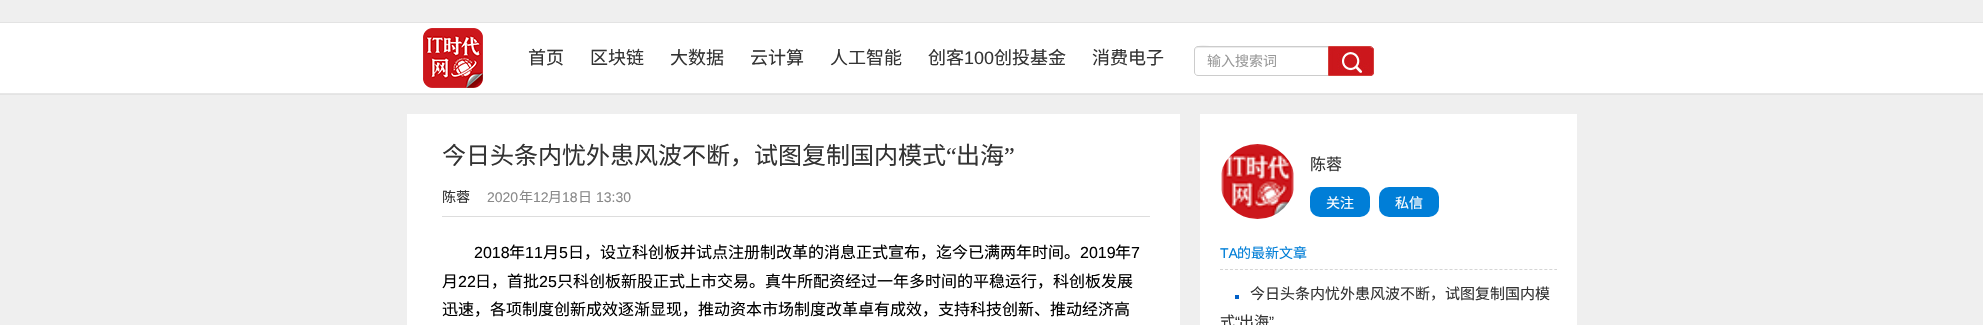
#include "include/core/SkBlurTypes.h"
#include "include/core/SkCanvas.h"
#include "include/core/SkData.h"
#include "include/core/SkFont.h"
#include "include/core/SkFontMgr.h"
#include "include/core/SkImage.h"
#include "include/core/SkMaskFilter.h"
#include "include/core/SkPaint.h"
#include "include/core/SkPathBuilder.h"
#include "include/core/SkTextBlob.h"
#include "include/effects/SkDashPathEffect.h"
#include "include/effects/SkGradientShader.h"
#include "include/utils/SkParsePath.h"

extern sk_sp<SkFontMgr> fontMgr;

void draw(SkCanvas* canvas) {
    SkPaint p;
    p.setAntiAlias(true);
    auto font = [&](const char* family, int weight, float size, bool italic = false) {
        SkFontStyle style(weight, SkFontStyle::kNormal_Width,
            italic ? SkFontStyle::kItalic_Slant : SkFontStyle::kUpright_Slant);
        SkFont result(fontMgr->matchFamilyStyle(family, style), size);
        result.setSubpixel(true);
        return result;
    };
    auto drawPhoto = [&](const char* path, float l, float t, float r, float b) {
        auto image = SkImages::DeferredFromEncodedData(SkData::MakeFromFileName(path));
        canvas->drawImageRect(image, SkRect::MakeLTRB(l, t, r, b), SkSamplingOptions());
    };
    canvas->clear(0xFFEFEFEF);
    p.setColor(0x4D000000);
    p.setMaskFilter(SkMaskFilter::MakeBlur(kNormal_SkBlurStyle, 0.5f));
    canvas->drawRect(SkRect::MakeLTRB(0, 23, 1983, 94), p);
    p.setMaskFilter(nullptr);
    p.setColor(0xFFFFFFFF);
    canvas->drawRect(SkRect::MakeLTRB(0, 23, 1983, 93), p);
    p.setColor(0xFFE7E7E7);
    canvas->drawRect(SkRect::MakeLTRB(0, 93, 1983, 94), p);
    drawPhoto("media/1.png", 423, 28, 483, 88);
    auto font1 = font("Noto Sans CJK SC", 400, 18);
    p.setColor(0xFF333333);
    {
        const struct { const char* s; float x, y; } items[] = {
            {"首页", 528, 64},
            {"区块链", 590, 64},
            {"大数据", 670, 64},
            {"云计算", 750, 64},
            {"人工智能", 830, 64},
            {"创客", 928, 64},
        };
        for (auto [s, x, y] : items) {
            canvas->drawString(s, x, y, font1, p);
        }
    }
    auto font2 = font("Liberation Sans", 400, 18);
    canvas->drawString("100", 964, 64, font2, p);
    canvas->drawString("创投基金", 994, 64, font1, p);
    canvas->drawString("消费电子", 1092, 64, font1, p);
    p.setColor(0xFFECECEC);
    canvas->drawPath(SkPathBuilder().moveTo(1198, 48).lineTo(1328, 48).lineTo(1328, 47).lineTo(1220, 47).cubicTo(1211, 47, 1195, 42, 1195, 51).cubicTo(1195, 49, 1196, 48, 1198, 48).close().detach(), p);
    p.setStyle(SkPaint::kStroke_Style);
    p.setStrokeWidth(1);
    p.setColor(0xFFCCCCCC);
    canvas->drawPath(SkPathBuilder().moveTo(1198, 46.5f).lineTo(1328.5f, 46.5f).lineTo(1328.5f, 75.5f).lineTo(1198, 75.5f).cubicTo(1196, 75.5f, 1194.5f, 74, 1194.5f, 72).lineTo(1194.5f, 50).cubicTo(1194.5f, 48, 1196, 46.5f, 1198, 46.5f).close().detach(), p);
    auto font3 = font("Noto Sans CJK SC", 400, 14);
    p.setStyle(SkPaint::kFill_Style);
    p.setColor(0xFF999999);
    canvas->drawString("输入搜索词", 1207, 66, font3, p);
    drawPhoto("media/2.png", 1329, 47, 1374, 76);
    p.setStyle(SkPaint::kStroke_Style);
    p.setColor(0xFFD43F3A);
    canvas->drawPath(SkPathBuilder().moveTo(1328.5f, 46.5f).lineTo(1370, 46.5f).cubicTo(1372, 46.5f, 1373.5f, 48, 1373.5f, 50).lineTo(1373.5f, 72).cubicTo(1373.5f, 74, 1372, 75.5f, 1370, 75.5f).lineTo(1328.5f, 75.5f).close().detach(), p);
    p.setStyle(SkPaint::kFill_Style);
    p.setColor(0xFFFFFFFF);
    canvas->drawRect(SkRect::MakeLTRB(407, 114, 1180, 325), p);
    auto font4 = font("Noto Sans CJK SC", 400, 24);
    p.setColor(0xFF333333);
    canvas->drawString("今日头条内忧外患风波不断，试图复制国内模式", 442, 164, font4, p);
    auto font5 = font("Liberation Serif", 400, 24);
    canvas->drawString("“", 946, 164, font5, p);
    canvas->drawString("出海", 956, 164, font4, p);
    canvas->drawString("”", 1004, 164, font5, p);
    p.setColor(0xFFDDDDDD);
    canvas->drawRect(SkRect::MakeLTRB(442, 216, 1150, 217), p);
    p.setColor(0xFF333333);
    canvas->drawString("陈蓉", 442, 202, font3, p);
    auto font6 = font("Liberation Sans", 400, 14);
    p.setColor(0xFF898989);
    canvas->drawString("2020", 487, 202, font6, p);
    canvas->drawString("年", 519, 202, font3, p);
    canvas->drawString("12", 533, 202, font6, p);
    canvas->drawString("月", 548, 202, font3, p);
    canvas->drawString("18", 562, 202, font6, p);
    canvas->drawString("日", 578, 202, font3, p);
    canvas->drawString("13:30", 596, 202, font6, p);
    auto font7 = font("Liberation Sans", 400, 16);
    p.setColor(0xFF000000);
    canvas->drawString("2018", 474, 258, font7, p);
    auto font8 = font("Noto Sans CJK SC", 400, 16);
    canvas->drawString("年", 509, 258, font8, p);
    canvas->drawString("11", 525, 258, font7, p);
    canvas->drawString("月", 543, 258, font8, p);
    canvas->drawString("5", 559, 258, font7, p);
    canvas->drawString("日，设立科创板并试点注册制改革的消息正式宣布，迄今已满两年时间。", 568, 258, font8, p);
    canvas->drawString("2019", 1080, 258, font7, p);
    canvas->drawString("年", 1115, 258, font8, p);
    canvas->drawString("7", 1131, 258, font7, p);
    canvas->drawString("月", 442, 287, font8, p);
    canvas->drawString("22", 458, 287, font7, p);
    canvas->drawString("日，首批", 475, 287, font8, p);
    canvas->drawString("25", 539, 287, font7, p);
    canvas->drawString("只科创板新股正式上市交易。真牛所配资经过一年多时间的平稳运行，科创板发展", 557, 287, font8, p);
    canvas->drawString("迅速，各项制度创新成效逐渐显现，推动资本市场制度改革卓有成效，支持科技创新、推动经济高", 442, 315, font8, p);
    p.setColor(0xFFFFFFFF);
    canvas->drawRect(SkRect::MakeLTRB(1200, 114, 1577, 325), p);
    drawPhoto("media/3.png", 1221, 144, 1294, 219);
    p.setColor(0xFF333333);
    canvas->drawString("陈蓉", 1310, 170, font8, p);
    p.setColor(0xFF007ED7);
    canvas->drawRoundRect(SkRect::MakeLTRB(1310, 187, 1370, 217), 10, 10, p);
    p.setColor(0xFFFFFFFF);
    canvas->drawString("关注", 1326, 208, font3, p);
    p.setColor(0xFF007ED7);
    canvas->drawRoundRect(SkRect::MakeLTRB(1379, 187, 1439, 217), 10, 10, p);
    p.setColor(0xFFFFFFFF);
    canvas->drawString("私信", 1395, 208, font3, p);
    p.setStyle(SkPaint::kStroke_Style);
    p.setColor(0xFFD6D6D6);
    p.setPathEffect(SkDashPathEffect::Make({{3, 1.99f}}, 0));
    canvas->drawPath(SkPathBuilder().moveTo(1220, 269.5f).lineTo(1557, 269.5f).detach(), p);
    p.setPathEffect(nullptr);
    p.setStyle(SkPaint::kFill_Style);
    p.setColor(0xFF007ED7);
    canvas->drawString("TA", 1220, 258, font6, p);
    canvas->drawString("的最新文章", 1237, 258, font3, p);
    p.setColor(0xFF0160C7);
    canvas->drawRect(SkRect::MakeLTRB(1235, 295, 1239, 299), p);
    auto font9 = font("Noto Sans CJK SC", 400, 15);
    p.setColor(0xFF333333);
    canvas->drawString("今日头条内忧外患风波不断，试图复制国内模", 1250, 299, font9, p);
    canvas->drawString("式", 1220, 327, font9, p);
    auto font10 = font("Liberation Sans", 400, 15);
    canvas->drawString("“", 1235, 327, font10, p);
    canvas->drawString("出海", 1239, 327, font9, p);
    canvas->drawString("”", 1269, 327, font10, p);
}
